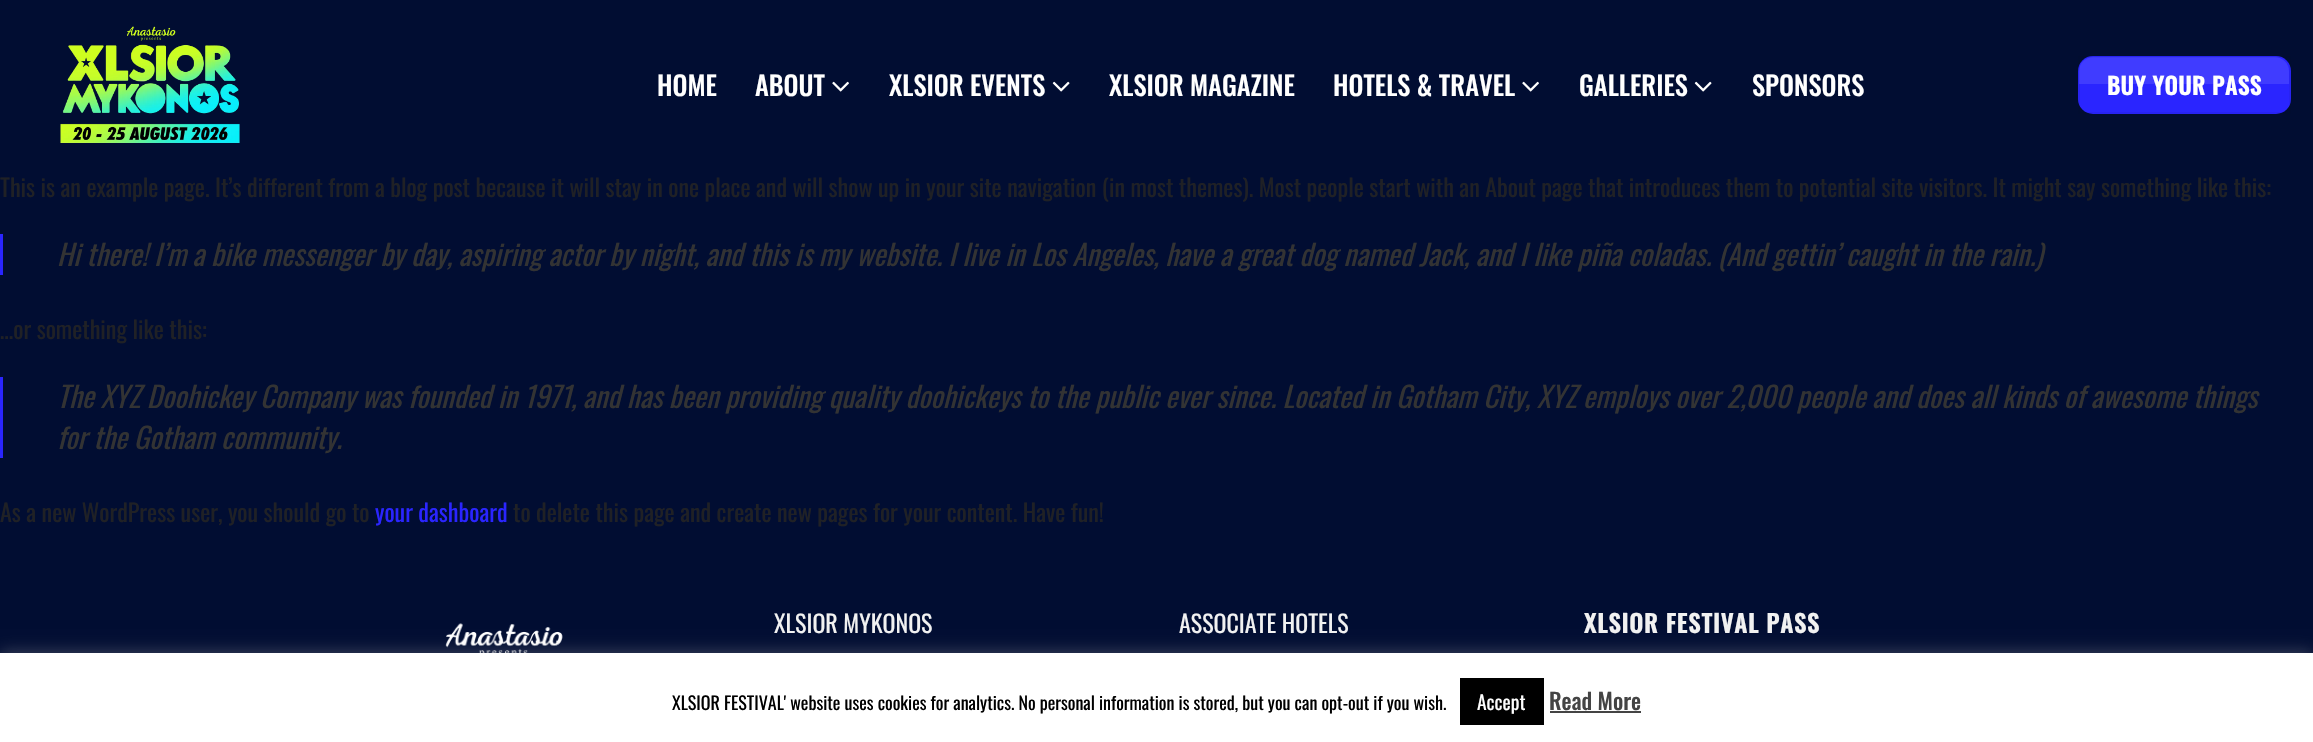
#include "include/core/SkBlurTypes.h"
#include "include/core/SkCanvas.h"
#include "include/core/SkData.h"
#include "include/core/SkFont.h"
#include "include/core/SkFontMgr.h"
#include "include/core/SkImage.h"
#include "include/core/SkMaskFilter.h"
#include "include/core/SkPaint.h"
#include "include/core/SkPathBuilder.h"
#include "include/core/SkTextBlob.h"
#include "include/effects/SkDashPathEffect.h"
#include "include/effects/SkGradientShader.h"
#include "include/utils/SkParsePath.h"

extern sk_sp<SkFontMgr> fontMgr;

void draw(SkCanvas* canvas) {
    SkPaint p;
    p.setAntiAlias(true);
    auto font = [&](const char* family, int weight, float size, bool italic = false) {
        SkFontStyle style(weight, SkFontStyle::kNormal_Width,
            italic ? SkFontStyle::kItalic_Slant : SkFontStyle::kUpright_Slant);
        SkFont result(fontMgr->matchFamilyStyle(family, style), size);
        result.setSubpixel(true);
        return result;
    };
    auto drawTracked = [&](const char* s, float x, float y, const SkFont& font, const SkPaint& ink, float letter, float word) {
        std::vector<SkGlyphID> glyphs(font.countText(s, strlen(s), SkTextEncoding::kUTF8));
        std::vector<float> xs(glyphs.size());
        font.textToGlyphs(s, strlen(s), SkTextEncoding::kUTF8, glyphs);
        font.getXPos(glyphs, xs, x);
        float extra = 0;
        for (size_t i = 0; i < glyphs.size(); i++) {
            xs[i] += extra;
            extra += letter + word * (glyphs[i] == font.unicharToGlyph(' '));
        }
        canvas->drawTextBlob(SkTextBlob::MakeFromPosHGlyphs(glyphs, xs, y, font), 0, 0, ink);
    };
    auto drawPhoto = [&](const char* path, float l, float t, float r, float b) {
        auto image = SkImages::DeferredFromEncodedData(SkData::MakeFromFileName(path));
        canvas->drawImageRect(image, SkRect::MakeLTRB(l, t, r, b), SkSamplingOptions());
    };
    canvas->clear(0xFF010D32);
    drawPhoto("media/1.png", 60, 26, 240, 143);
    auto font1 = font("Oswald", 500, 26.5f);
    p.setColor(0xFFFFFFFF);
    canvas->drawString("HOME", 657, 96, font1, p);
    canvas->drawString("ABOUT", 755, 96, font1, p);
    drawPhoto("media/2.png", 832, 81, 849, 92);
    canvas->drawString("XLSIOR EVENTS", 889, 96, font1, p);
    drawPhoto("media/3.png", 1052, 81, 1070, 92);
    canvas->drawString("XLSIOR MAGAZINE", 1109, 96, font1, p);
    canvas->drawString("HOTELS & TRAVEL", 1333, 96, font1, p);
    drawPhoto("media/2.png", 1522, 81, 1539, 92);
    canvas->drawString("GALLERIES", 1579, 96, font1, p);
    drawPhoto("media/3.png", 1694, 81, 1712, 92);
    canvas->drawString("SPONSORS", 1752, 96, font1, p);
    p.setColor(0xFF2A25FF);
    canvas->drawRoundRect(SkRect::MakeLTRB(2078, 56, 2291, 114), 15, 15, p);
    p.setStyle(SkPaint::kStroke_Style);
    p.setStrokeWidth(2);
    p.setColor(0x0D000000);
    canvas->drawRect(SkRect::MakeLTRB(2079, 57, 2290, 113), p);
    p.setStyle(SkPaint::kFill_Style);
    p.setColor(0x1AFFFFFF);
    canvas->drawPath(SkPathBuilder().moveTo(2093, 57).lineTo(2275, 57).cubicTo(2282.5f, 57, 2289, 63.5f, 2289, 71).lineTo(2289, 84).lineTo(2079, 84).lineTo(2079, 71).cubicTo(2079, 63.5f, 2085.5f, 57, 2093, 57).close().detach(), p);
    auto font2 = font("Oswald", 700, 23);
    p.setColor(0xFFFFFFFF);
    drawTracked("BUY YOUR PASS", 2107, 95, font2, p, 0.75f, 0);
    auto font3 = font("Oswald", 400, 24);
    p.setColor(0xFF202125);
    canvas->drawString("This is an example page. It’s different from a blog post because it will stay in one place and will show up in your site navigation (in most themes). Most people start with an About page that introduces them to potential site visitors. It might say something like this:", 0, 197, font3, p);
    p.setColor(0xFF2A25FF);
    canvas->drawRect(SkRect::MakeLTRB(0, 234, 3, 275), p);
    auto font4 = font("Oswald", 400, 28.8f, true);
    p.setColor(0xFF333333);
    canvas->drawString("Hi there! I’m a bike messenger by day, aspiring actor by night, and this is my website. I live in Los Angeles, have a great dog named Jack, and I like piña coladas. (And gettin’ caught in the rain.)", 57, 266, font4, p);
    p.setColor(0xFF202125);
    canvas->drawString("…or something like this:", 0, 339, font3, p);
    p.setColor(0xFF2A25FF);
    canvas->drawRect(SkRect::MakeLTRB(0, 377, 3, 458), p);
    p.setColor(0xFF333333);
    canvas->drawString("The XYZ Doohickey Company was founded in 1971, and has been providing quality doohickeys to the public ever since. Located in Gotham City, XYZ employs over 2,000 people and does all kinds of awesome things", 57, 408, font4, p);
    canvas->drawString("for the Gotham community.", 57, 449, font4, p);
    p.setColor(0xFF202125);
    canvas->drawString("As a new WordPress user, you should go to", 0, 522, font3, p);
    p.setColor(0xFF2A25FF);
    canvas->drawString("your dashboard", 375, 522, font3, p);
    p.setColor(0xFF202125);
    canvas->drawString("to delete this page and create new pages for your content. Have fun!", 513, 522, font3, p);
    drawPhoto("media/4.png", 445, 623, 563, 653);
    p.setColor(0xFFF1F1F1);
    canvas->drawString("XLSIOR MYKONOS", 774, 633, font3, p);
    canvas->drawString("ASSOCIATE HOTELS", 1179, 633, font3, p);
    auto font5 = font("Oswald", 700, 24);
    drawTracked("XLSIOR FESTIVAL PASS", 1584, 633, font5, p, 1.2f, 0);
    p.setColor(0x4DACABAB);
    p.setMaskFilter(SkMaskFilter::MakeBlur(kNormal_SkBlurStyle, 7.5f));
    canvas->drawRect(SkRect::MakeLTRB(0, 651, 2313, 741), p);
    p.setMaskFilter(nullptr);
    p.setColor(0xFFFFFFFF);
    canvas->drawRect(SkRect::MakeLTRB(0, 653, 2313, 742), p);
    auto font6 = font("Oswald", 400, 18);
    p.setColor(0xFF000000);
    canvas->drawString("XLSIOR FESTIVAL' website uses cookies for analytics. No personal information is stored, but you can opt-out if you wish.", 672, 710, font6, p);
    canvas->drawRect(SkRect::MakeLTRB(1460, 678, 1544, 725), p);
    auto font7 = font("Oswald", 400, 19.5f);
    p.setColor(0xFFFFFFFF);
    canvas->drawString("Accept", 1477, 710, font7, p);
    auto font8 = font("Oswald", 500, 22.5f);
    p.setColor(0xFF444444);
    canvas->drawString("Read More", 1549, 710, font8, p);
    canvas->drawRect(SkRect::MakeLTRB(1550, 711, 1641, 713), p);
}
